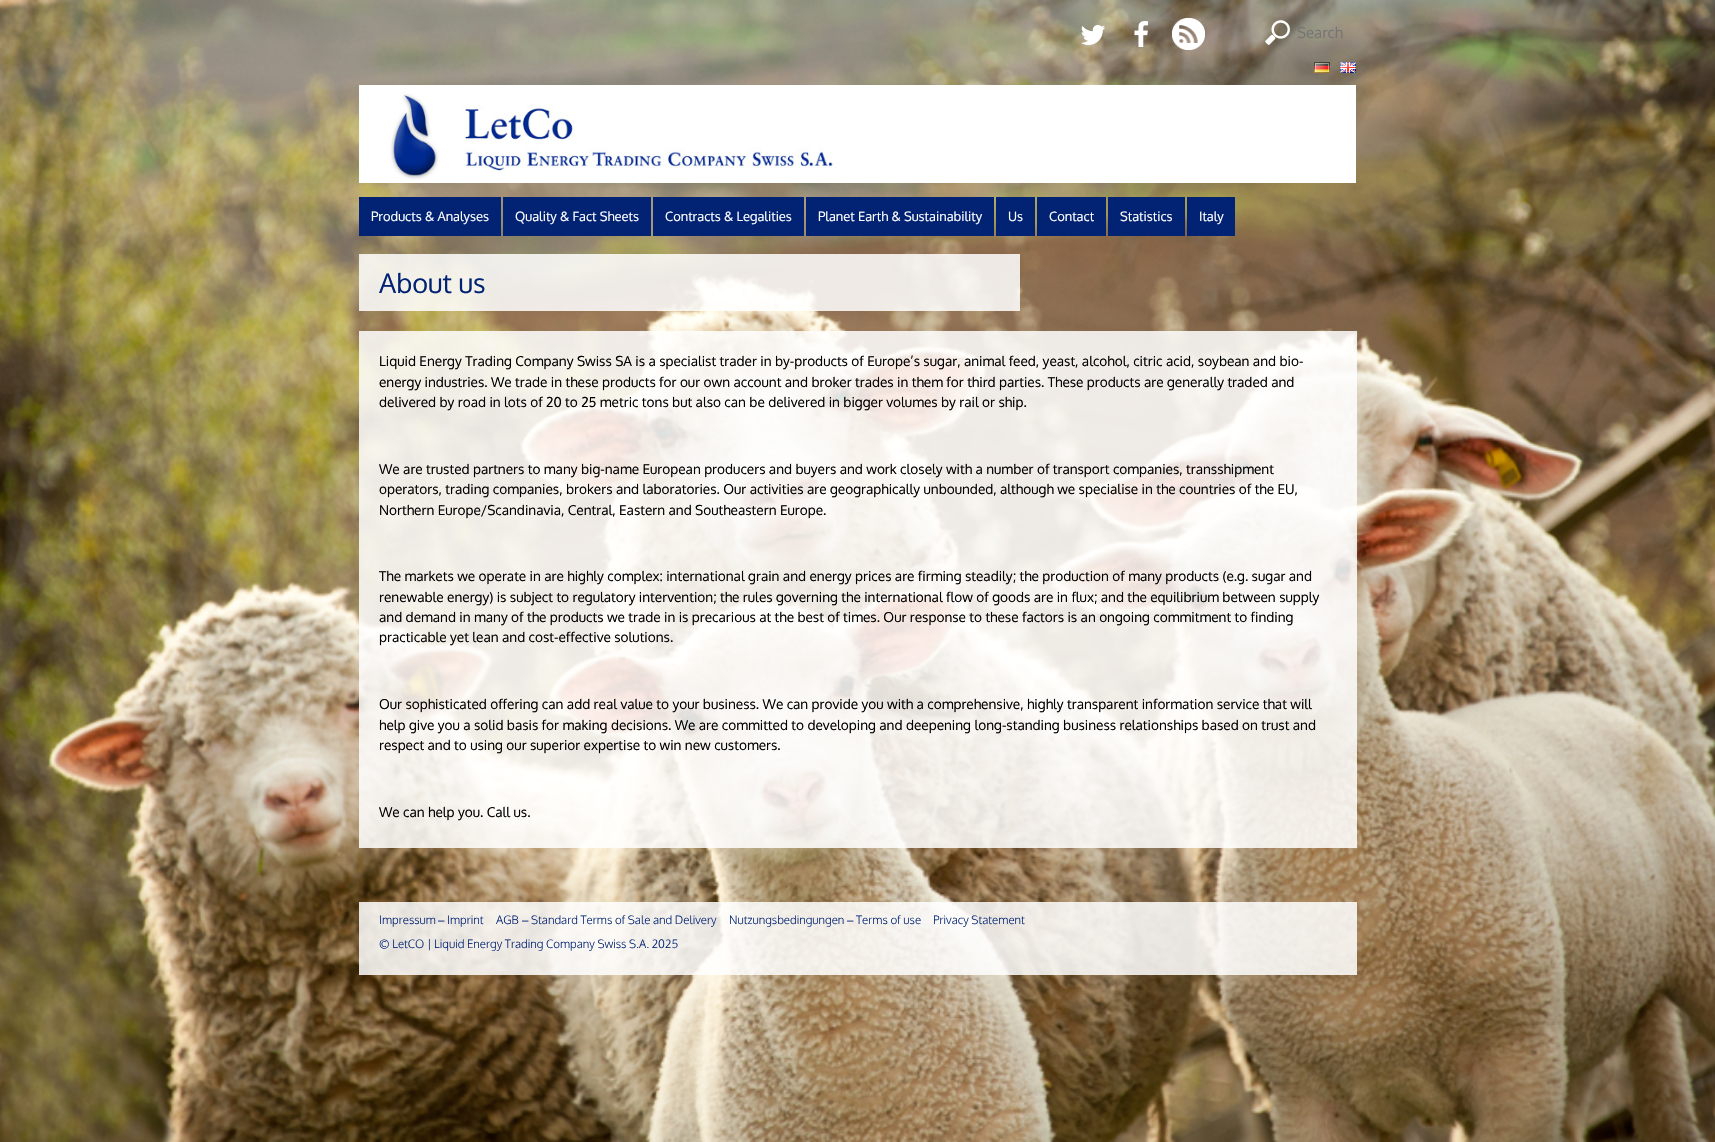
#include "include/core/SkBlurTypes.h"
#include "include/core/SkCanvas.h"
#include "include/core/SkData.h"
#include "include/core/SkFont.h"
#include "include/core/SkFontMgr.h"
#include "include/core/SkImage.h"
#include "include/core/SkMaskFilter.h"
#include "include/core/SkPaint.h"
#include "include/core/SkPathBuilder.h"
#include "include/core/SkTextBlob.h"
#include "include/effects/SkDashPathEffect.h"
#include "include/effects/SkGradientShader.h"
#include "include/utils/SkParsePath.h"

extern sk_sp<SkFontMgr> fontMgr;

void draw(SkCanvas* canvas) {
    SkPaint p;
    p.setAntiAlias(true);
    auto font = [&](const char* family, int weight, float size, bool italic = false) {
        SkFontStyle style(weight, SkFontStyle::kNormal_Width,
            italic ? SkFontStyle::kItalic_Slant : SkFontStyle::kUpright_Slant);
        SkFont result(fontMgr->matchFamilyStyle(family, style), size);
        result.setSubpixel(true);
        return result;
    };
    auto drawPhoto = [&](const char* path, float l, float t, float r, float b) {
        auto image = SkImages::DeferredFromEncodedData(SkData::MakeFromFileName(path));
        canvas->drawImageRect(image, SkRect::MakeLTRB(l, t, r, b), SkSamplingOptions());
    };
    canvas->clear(0xFFFFFFFF);
    drawPhoto("media/1.png", 0, 0, 1715, 1142);
    drawPhoto("media/2.png", 1081, 25, 1106, 45);
    drawPhoto("media/3.png", 1134, 21, 1148, 47);
    drawPhoto("media/4.png", 1172, 18, 1205, 50);
    drawPhoto("media/5.png", 1265, 20, 1290, 45);
    auto font1 = font("Oxygen", 400, 15);
    p.setColor(0xFF757575);
    canvas->drawString("Search", 1297, 38, font1, p);
    drawPhoto("media/6.png", 1314, 62, 1330, 73);
    drawPhoto("media/7.png", 1340, 62, 1356, 73);
    drawPhoto("media/8.png", 359, 85, 1356, 183);
    p.setColor(0xFF022373);
    canvas->drawRect(SkRect::MakeLTRB(359, 197, 501, 236), p);
    auto font2 = font("Oxygen", 400, 12.9f);
    p.setColor(0xFFFFFFFF);
    canvas->drawString("Products & Analyses", 371, 221, font2, p);
    p.setColor(0xFF022373);
    canvas->drawRect(SkRect::MakeLTRB(503, 197, 651, 236), p);
    p.setColor(0xFFFFFFFF);
    canvas->drawString("Quality & Fact Sheets", 515, 221, font2, p);
    p.setColor(0xFF022373);
    canvas->drawRect(SkRect::MakeLTRB(653, 197, 804, 236), p);
    p.setColor(0xFFFFFFFF);
    canvas->drawString("Contracts & Legalities", 665, 221, font2, p);
    p.setColor(0xFF022373);
    canvas->drawRect(SkRect::MakeLTRB(806, 197, 994, 236), p);
    p.setColor(0xFFFFFFFF);
    canvas->drawString("Planet Earth & Sustainability", 818, 221, font2, p);
    p.setColor(0xFF022373);
    canvas->drawRect(SkRect::MakeLTRB(996, 197, 1035, 236), p);
    p.setColor(0xFFFFFFFF);
    canvas->drawString("Us", 1008, 221, font2, p);
    p.setColor(0xFF022373);
    canvas->drawRect(SkRect::MakeLTRB(1037, 197, 1106, 236), p);
    p.setColor(0xFFFFFFFF);
    canvas->drawString("Contact", 1049, 221, font2, p);
    p.setColor(0xFF022373);
    canvas->drawRect(SkRect::MakeLTRB(1108, 197, 1185, 236), p);
    p.setColor(0xFFFFFFFF);
    canvas->drawString("Statistics", 1120, 221, font2, p);
    p.setColor(0xFF022373);
    canvas->drawRect(SkRect::MakeLTRB(1187, 197, 1235, 236), p);
    p.setColor(0xFFFFFFFF);
    canvas->drawString("Italy", 1199, 221, font2, p);
    p.setColor(0xD9FFFFFF);
    canvas->drawRect(SkRect::MakeLTRB(359, 254, 1020, 311), p);
    auto font3 = font("Oxygen", 400, 27);
    p.setColor(0xFF022373);
    canvas->drawString("About us", 379, 293, font3, p);
    p.setColor(0xD9FFFFFF);
    canvas->drawRect(SkRect::MakeLTRB(359, 331, 1357, 848), p);
    auto font4 = font("Oxygen", 400, 13.6f);
    p.setColor(0xFF000000);
    {
        const struct { const char* s; float x, y; } items[] = {
            {"Liquid Energy Trading Company Swiss SA is a specialist trader in by-products of Europe’s sugar, animal feed, yeast, alcohol, citric acid, soybean and bio-", 379, 366},
            {"energy industries. We trade in these products for our own account and broker trades in them for third parties. These products are generally traded and", 379, 387},
            {"delivered by road in lots of 20 to 25 metric tons but also can be delivered in bigger volumes by rail or ship.", 379, 407},
            {"We are trusted partners to many big-name European producers and buyers and work closely with a number of transport companies, transshipment", 379, 474},
            {"operators, trading companies, brokers and laboratories. Our activities are geographically unbounded, although we specialise in the countries of the EU,", 379, 494},
            {"Northern Europe/Scandinavia, Central, Eastern and Southeastern Europe.", 379, 515},
            {"The markets we operate in are highly complex: international grain and energy prices are firming steadily; the production of many products (e.g. sugar and", 379, 581},
            {"renewable energy) is subject to regulatory intervention; the rules governing the international flow of goods are in flux; and the equilibrium between supply", 379, 602},
            {"and demand in many of the products we trade in is precarious at the best of times. Our response to these factors is an ongoing commitment to finding", 379, 622},
            {"practicable yet lean and cost-effective solutions.", 379, 642},
            {"Our sophisticated offering can add real value to your business. We can provide you with a comprehensive, highly transparent information service that will", 379, 709},
            {"help give you a solid basis for making decisions. We are committed to developing and deepening long-standing business relationships based on trust and", 379, 730},
            {"respect and to using our superior expertise to win new customers.", 379, 750},
            {"We can help you. Call us.", 379, 817},
        };
        for (auto [s, x, y] : items) {
            canvas->drawString(s, x, y, font4, p);
        }
    }
    p.setColor(0xD9FFFFFF);
    canvas->drawRect(SkRect::MakeLTRB(359, 902, 1357, 975), p);
    auto font5 = font("Oxygen", 300, 11.55f);
    p.setColor(0xFF022373);
    canvas->drawString("Impressum", 379, 924, font5, p);
    auto font6 = font("Liberation Sans", 400, 11.55f);
    canvas->drawString("–", 438, 924, font6, p);
    canvas->drawString("Imprint", 447, 924, font5, p);
    canvas->drawString("AGB", 496, 924, font5, p);
    canvas->drawString("–", 522, 924, font6, p);
    canvas->drawString("Standard Terms of Sale and Delivery", 531, 924, font5, p);
    canvas->drawString("Nutzungsbedingungen", 729, 924, font5, p);
    canvas->drawString("–", 847, 924, font6, p);
    {
        const struct { const char* s; float x, y; } items[] = {
            {"Terms of use", 856, 924},
            {"Privacy Statement", 933, 924},
            {"© LetCO | Liquid Energy Trading Company Swiss S.A. 2025", 379, 948},
        };
        for (auto [s, x, y] : items) {
            canvas->drawString(s, x, y, font5, p);
        }
    }
}
